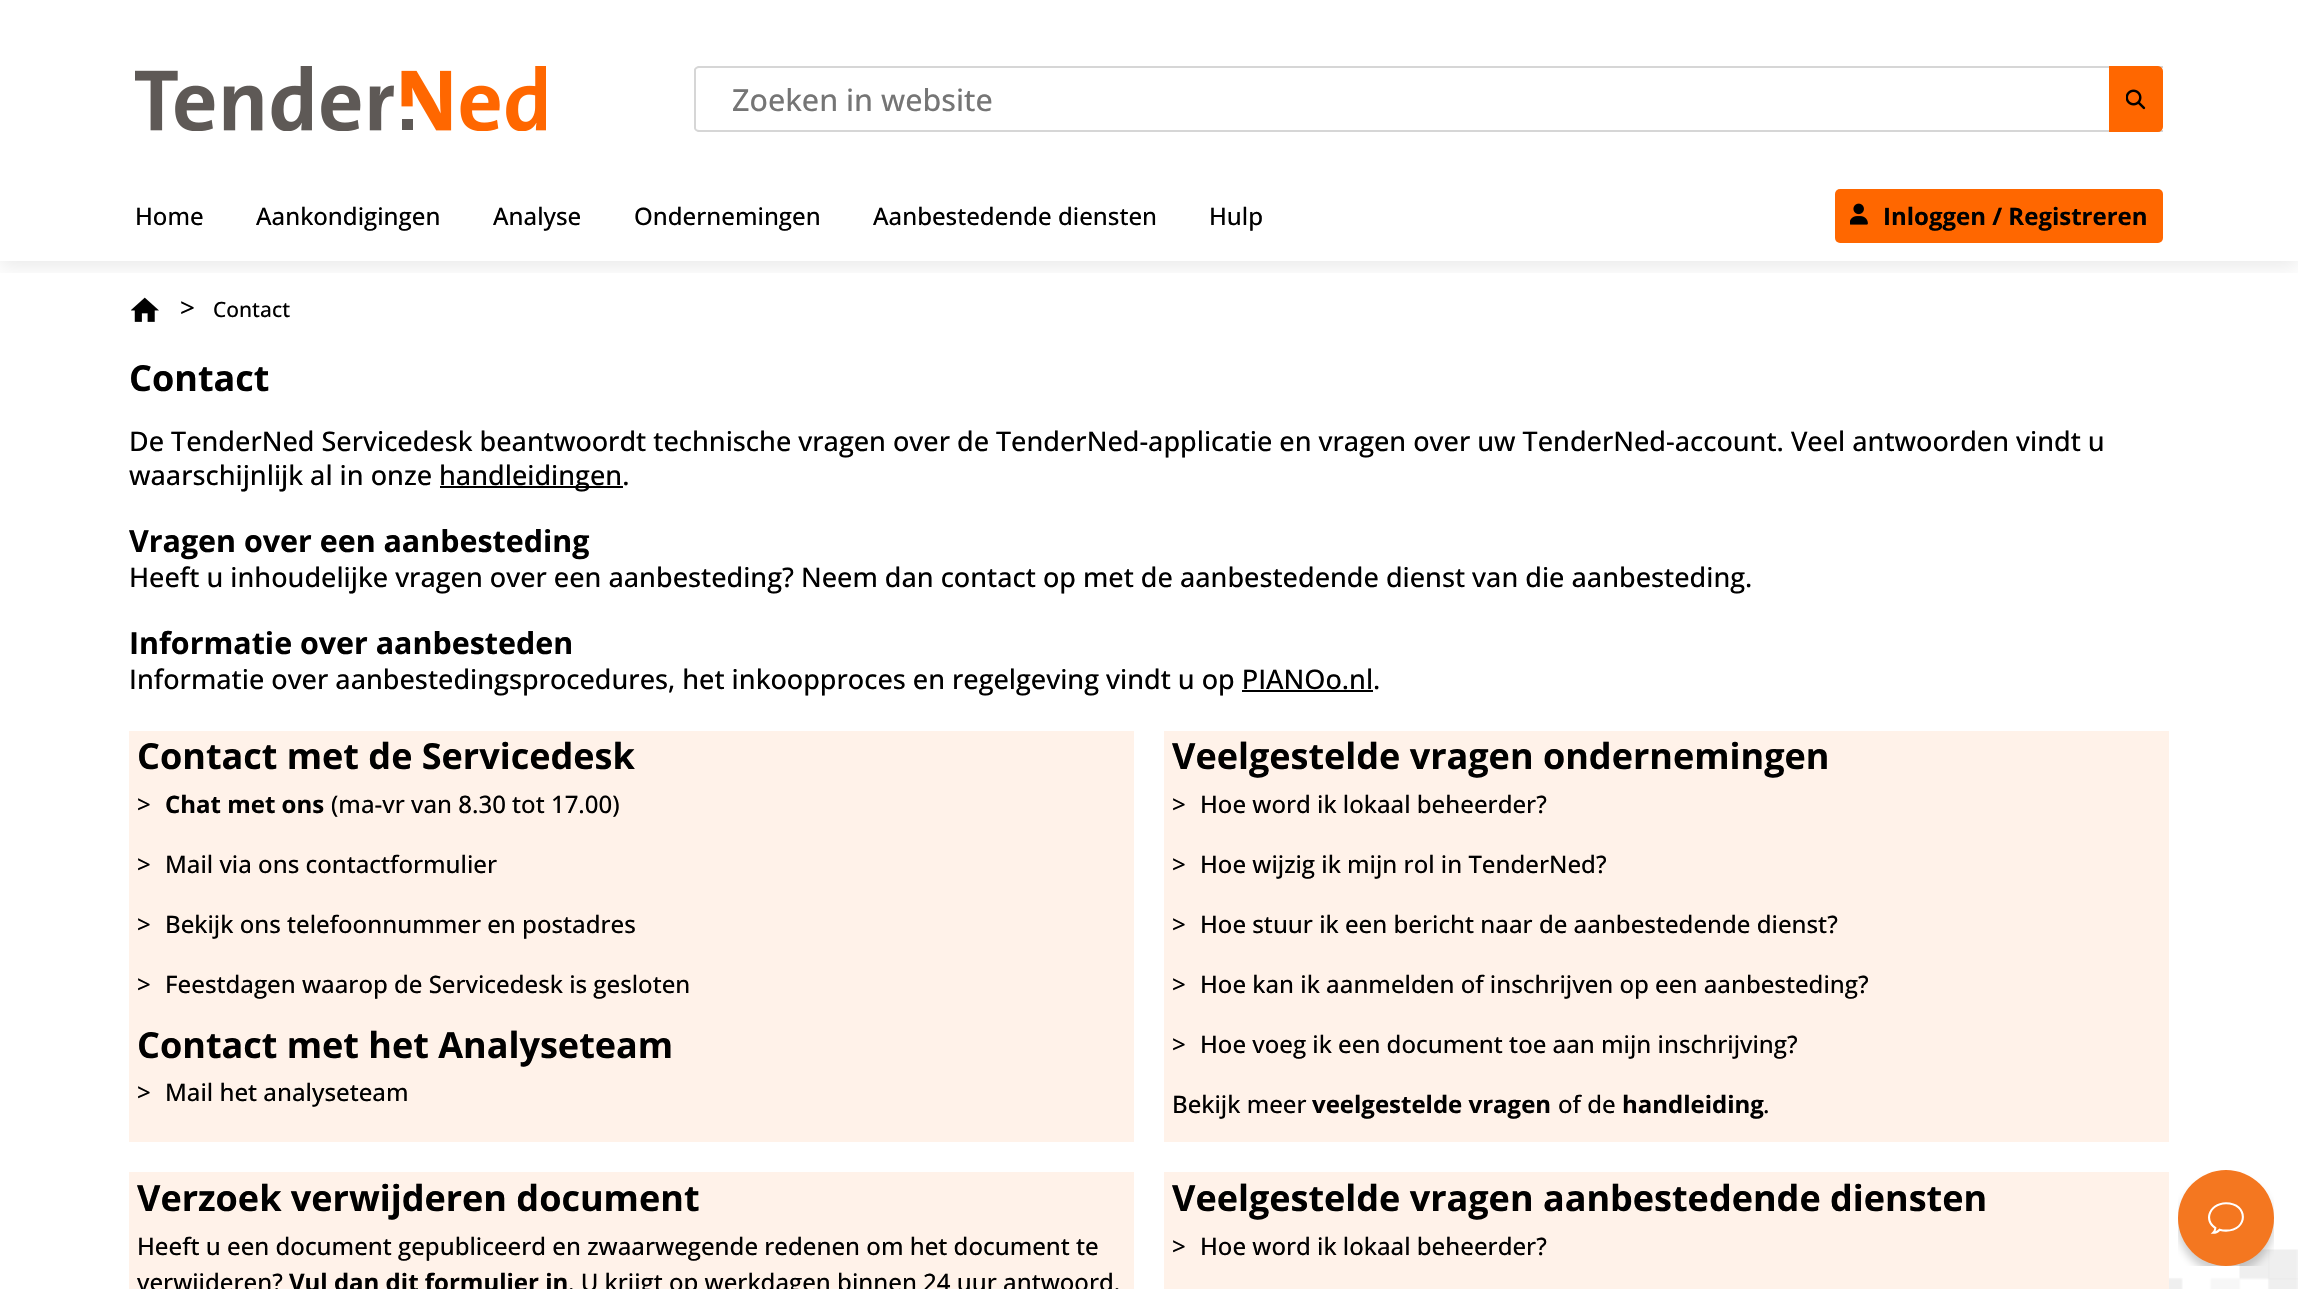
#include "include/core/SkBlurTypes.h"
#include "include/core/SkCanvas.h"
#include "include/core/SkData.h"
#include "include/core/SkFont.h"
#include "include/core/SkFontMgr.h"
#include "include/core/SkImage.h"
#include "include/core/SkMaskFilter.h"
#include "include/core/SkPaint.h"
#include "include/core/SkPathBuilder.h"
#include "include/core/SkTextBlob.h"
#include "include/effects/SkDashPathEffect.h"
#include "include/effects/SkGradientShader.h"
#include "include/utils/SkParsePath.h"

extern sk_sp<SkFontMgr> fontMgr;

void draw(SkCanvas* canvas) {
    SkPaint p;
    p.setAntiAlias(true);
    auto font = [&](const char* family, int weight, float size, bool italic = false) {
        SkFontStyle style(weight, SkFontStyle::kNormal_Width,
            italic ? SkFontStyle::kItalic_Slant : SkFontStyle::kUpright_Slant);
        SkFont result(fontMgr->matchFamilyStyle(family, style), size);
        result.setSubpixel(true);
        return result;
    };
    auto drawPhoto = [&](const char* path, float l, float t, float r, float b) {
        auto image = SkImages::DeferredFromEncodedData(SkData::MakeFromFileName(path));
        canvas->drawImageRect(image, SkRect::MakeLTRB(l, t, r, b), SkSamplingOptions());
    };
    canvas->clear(0xFFFFFFFF);
    canvas->save();
    canvas->clipRect(SkRect::MakeLTRB(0, 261, 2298, 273));
    p.setColor(0x14000000);
    p.setMaskFilter(SkMaskFilter::MakeBlur(kNormal_SkBlurStyle, 9));
    canvas->drawRect(SkRect::MakeLTRB(0, 6, 2298, 267), p);
    p.setMaskFilter(nullptr);
    canvas->restore();
    drawPhoto("media/1.png", 135, 66, 546, 131);
    p.setColor(0xFFD6D6D6);
    canvas->drawPath(SkPathBuilder(SkPathFillType::kEvenOdd).moveTo(699, 66).lineTo(2163, 66).lineTo(2163, 132).lineTo(699, 132).cubicTo(697, 132, 694, 130, 694, 128).lineTo(694, 70).cubicTo(694, 68, 697, 66, 699, 66).close().moveTo(699, 68).lineTo(2163, 68).lineTo(2163, 130).lineTo(699, 130).cubicTo(697, 130, 696, 129, 696, 128).lineTo(696, 70).cubicTo(696, 69, 697, 68, 699, 68).close().detach(), p);
    auto font1 = font("Open Sans", 500, 30.4f);
    p.setColor(0xFF757575);
    canvas->drawString("Zoeken in website", 732, 111, font1, p);
    p.setColor(0xFFFF6700);
    canvas->drawPath(SkPathBuilder().moveTo(2110, 67).lineTo(2158, 67).cubicTo(2160, 67, 2162, 69, 2162, 71).lineTo(2162, 127).cubicTo(2162, 129, 2160, 131, 2158, 131).lineTo(2110, 131).close().detach(), p);
    p.setStyle(SkPaint::kStroke_Style);
    p.setStrokeWidth(2);
    canvas->drawPath(SkPathBuilder().moveTo(2110, 67).lineTo(2158, 67).cubicTo(2160, 67, 2162, 69, 2162, 71).lineTo(2162, 127).cubicTo(2162, 129, 2160, 131, 2158, 131).lineTo(2110, 131).close().detach(), p);
    drawPhoto("media/2.png", 2126, 89, 2146, 110);
    auto font2 = font("Open Sans", 500, 24);
    p.setStyle(SkPaint::kFill_Style);
    p.setColor(0xFF000000);
    {
        const struct { const char* s; float x, y; } items[] = {
            {"Home", 135, 225},
            {"Aankondigingen", 256, 225},
            {"Analyse", 493, 225},
            {"Ondernemingen", 634, 225},
            {"Aanbestedende diensten", 873, 225},
            {"Hulp", 1209, 225},
        };
        for (auto [s, x, y] : items) {
            canvas->drawString(s, x, y, font2, p);
        }
    }
    p.setColor(0xFFFF6700);
    canvas->drawRoundRect(SkRect::MakeLTRB(1835, 189, 2163, 243), 5, 5, p);
    drawPhoto("media/3.png", 1850, 203, 1868, 225);
    auto font3 = font("Open Sans", 700, 24);
    p.setColor(0xFF000000);
    canvas->drawString("Inloggen / Registreren", 1883, 225, font3, p);
    drawPhoto("media/4.png", 2169, 1249, 2298, 1289);
    drawPhoto("media/5.png", 131, 297, 159, 322);
    auto font4 = font("Open Sans", 500, 26);
    canvas->drawString(">", 180, 317, font4, p);
    auto font5 = font("Open Sans", 500, 21);
    canvas->drawString("Contact", 213, 317, font5, p);
    auto font6 = font("Open Sans", 700, 36);
    canvas->drawString("Contact", 129, 391, font6, p);
    auto font7 = font("Open Sans", 500, 27);
    canvas->drawString("De TenderNed Servicedesk beantwoordt technische vragen over de TenderNed-applicatie en vragen over uw TenderNed-account. Veel antwoorden vindt u", 129, 451, font7, p);
    canvas->drawString("waarschijnlijk al in onze", 129, 485, font7, p);
    canvas->drawRect(SkRect::MakeLTRB(440, 486, 623, 488), p);
    canvas->drawString("handleidingen.", 439, 485, font7, p);
    auto font8 = font("Open Sans", 700, 30.4f);
    canvas->drawString("Vragen over een aanbesteding", 129, 552, font8, p);
    canvas->drawString("Heeft u inhoudelijke vragen over een aanbesteding? Neem dan contact op met de aanbestedende dienst van die aanbesteding.", 129, 587, font7, p);
    canvas->drawString("Informatie over aanbesteden", 129, 654, font8, p);
    canvas->drawString("Informatie over aanbestedingsprocedures, het inkoopproces en regelgeving vindt u op PIANOo.nl.", 129, 689, font7, p);
    canvas->drawRect(SkRect::MakeLTRB(1242, 690, 1373, 692), p);
    p.setColor(0xFFFFF2E9);
    canvas->drawRect(SkRect::MakeLTRB(129, 731, 1134, 1142), p);
    p.setColor(0xFF000000);
    canvas->drawString("Contact met de Servicedesk", 137, 769, font6, p);
    canvas->drawString(">", 137, 813, font2, p);
    canvas->drawString("Chat met ons", 165, 813, font3, p);
    {
        const struct { const char* s; float x, y; } items[] = {
            {"(ma-vr van 8.30 tot 17.00)", 331, 813},
            {">", 137, 873},
            {"Mail via ons contactformulier", 165, 873},
            {">", 137, 933},
            {"Bekijk ons telefoonnummer en postadres", 165, 933},
            {">", 137, 993},
            {"Feestdagen waarop de Servicedesk is gesloten", 165, 993},
        };
        for (auto [s, x, y] : items) {
            canvas->drawString(s, x, y, font2, p);
        }
    }
    canvas->drawString("Contact met het Analyseteam", 137, 1058, font6, p);
    canvas->drawString(">", 137, 1101, font2, p);
    canvas->drawString("Mail het analyseteam", 165, 1101, font2, p);
    p.setColor(0xFFFFF2E9);
    canvas->drawRect(SkRect::MakeLTRB(1164, 731, 2169, 1142), p);
    p.setColor(0xFF000000);
    canvas->drawString("Veelgestelde vragen ondernemingen", 1172, 769, font6, p);
    {
        const struct { const char* s; float x, y; } items[] = {
            {">", 1172, 813},
            {"Hoe word ik lokaal beheerder?", 1200, 813},
            {">", 1172, 873},
            {"Hoe wijzig ik mijn rol in TenderNed?", 1200, 873},
            {">", 1172, 933},
            {"Hoe stuur ik een bericht naar de aanbestedende dienst?", 1200, 933},
            {">", 1172, 993},
            {"Hoe kan ik aanmelden of inschrijven op een aanbesteding?", 1200, 993},
            {">", 1172, 1053},
            {"Hoe voeg ik een document toe aan mijn inschrijving?", 1200, 1053},
            {"Bekijk meer", 1172, 1113},
        };
        for (auto [s, x, y] : items) {
            canvas->drawString(s, x, y, font2, p);
        }
    }
    canvas->drawString("veelgestelde vragen", 1312, 1113, font3, p);
    canvas->drawString("of de", 1558, 1113, font2, p);
    canvas->drawString("handleiding", 1622, 1113, font3, p);
    canvas->drawString(".", 1763, 1113, font2, p);
    p.setColor(0xFFFFF2E9);
    canvas->drawRect(SkRect::MakeLTRB(129, 1172, 1134, 1289), p);
    p.setColor(0xFF000000);
    canvas->drawString("Verzoek verwijderen document", 137, 1211, font6, p);
    canvas->drawString("Heeft u een document gepubliceerd en zwaarwegende redenen om het document te", 137, 1255, font2, p);
    canvas->drawString("verwijderen?", 137, 1291, font2, p);
    canvas->drawString("Vul dan dit formulier in", 289, 1291, font3, p);
    canvas->drawString(". U krijgt op werkdagen binnen 24 uur antwoord.", 568, 1291, font2, p);
    p.setColor(0xFFFFF2E9);
    canvas->drawRect(SkRect::MakeLTRB(1164, 1172, 2169, 1289), p);
    p.setColor(0xFF000000);
    canvas->drawString("Veelgestelde vragen aanbestedende diensten", 1172, 1211, font6, p);
    canvas->drawString(">", 1172, 1255, font2, p);
    canvas->drawString("Hoe word ik lokaal beheerder?", 1200, 1255, font2, p);
    drawPhoto("media/6.png", 2178, 1170, 2274, 1266);
}
